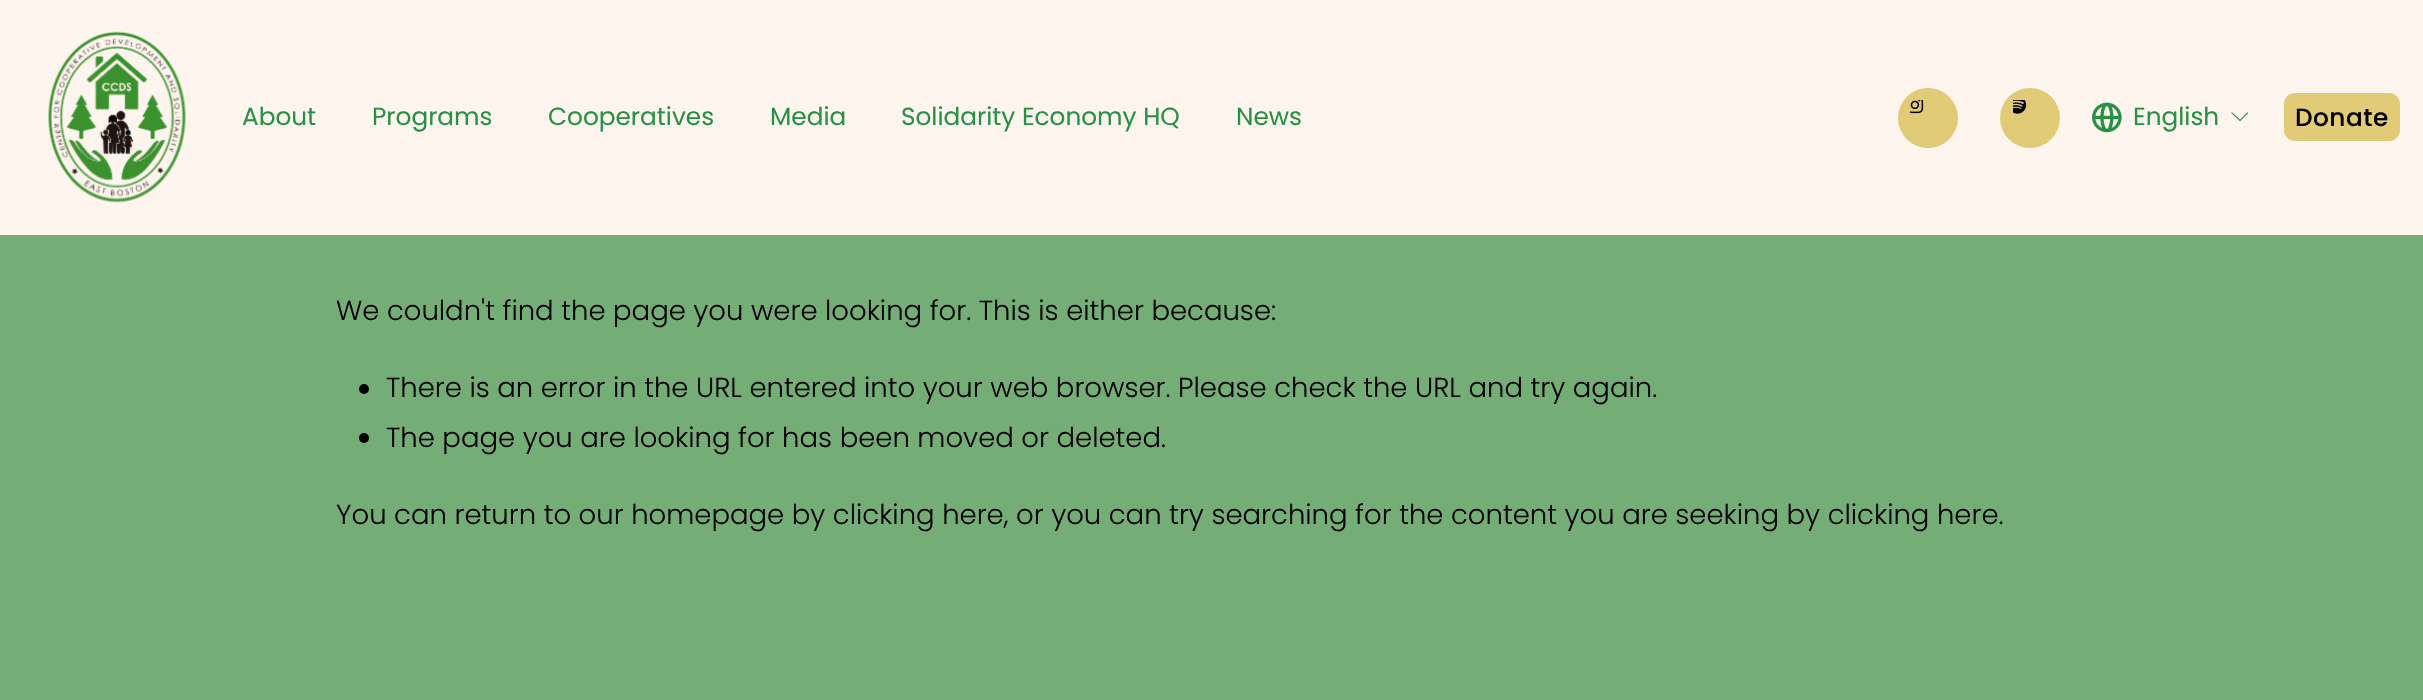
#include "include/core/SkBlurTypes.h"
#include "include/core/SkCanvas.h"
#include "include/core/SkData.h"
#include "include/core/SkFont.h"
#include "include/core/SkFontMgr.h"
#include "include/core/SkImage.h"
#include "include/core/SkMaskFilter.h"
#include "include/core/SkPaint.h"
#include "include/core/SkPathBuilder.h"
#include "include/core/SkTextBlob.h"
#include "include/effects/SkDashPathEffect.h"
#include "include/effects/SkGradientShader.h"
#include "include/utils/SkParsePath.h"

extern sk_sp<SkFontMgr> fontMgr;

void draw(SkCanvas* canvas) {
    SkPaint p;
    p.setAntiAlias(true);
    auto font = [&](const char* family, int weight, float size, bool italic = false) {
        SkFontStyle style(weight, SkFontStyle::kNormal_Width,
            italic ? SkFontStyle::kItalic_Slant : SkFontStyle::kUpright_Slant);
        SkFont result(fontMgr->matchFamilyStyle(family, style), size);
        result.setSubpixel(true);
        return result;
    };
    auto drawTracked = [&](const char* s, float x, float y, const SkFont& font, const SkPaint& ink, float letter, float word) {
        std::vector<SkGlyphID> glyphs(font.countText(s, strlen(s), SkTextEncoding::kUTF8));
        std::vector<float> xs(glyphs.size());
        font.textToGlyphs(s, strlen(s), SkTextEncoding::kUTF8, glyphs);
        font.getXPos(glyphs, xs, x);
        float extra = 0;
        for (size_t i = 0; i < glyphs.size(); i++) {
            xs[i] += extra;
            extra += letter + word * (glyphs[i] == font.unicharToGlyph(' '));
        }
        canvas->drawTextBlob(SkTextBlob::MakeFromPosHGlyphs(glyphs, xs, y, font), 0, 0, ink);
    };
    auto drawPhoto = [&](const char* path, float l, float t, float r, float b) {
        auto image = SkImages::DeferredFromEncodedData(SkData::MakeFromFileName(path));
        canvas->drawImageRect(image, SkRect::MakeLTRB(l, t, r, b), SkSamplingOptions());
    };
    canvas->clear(0xFF74AD75);
    p.setColor(0xFFFFF5EF);
    canvas->drawRect(SkRect::MakeLTRB(0, 0, 2423, 235), p);
    drawPhoto("media/1.png", 48, 31, 186, 203);
    auto font1 = font("Poppins", 400, 24.75f);
    p.setColor(0xFF279145);
    {
        const struct { const char* s; float x, y; } items[] = {
            {"About", 242, 125},
            {"Programs", 372, 125},
            {"Cooperatives", 548, 125},
            {"Media", 770, 125},
            {"Solidarity Economy HQ", 901, 125},
            {"News", 1236, 125},
        };
        for (auto [s, x, y] : items) {
            canvas->drawString(s, x, y, font1, p);
        }
    }
    p.setColor(0xFFE1CB77);
    canvas->drawCircle(1928, 118, 30, p);
    drawPhoto("media/2.png", 1910, 100, 1924, 114);
    canvas->drawCircle(2030, 118, 30, p);
    drawPhoto("media/3.png", 2013, 100, 2027, 114);
    drawPhoto("media/4.png", 2092, 102, 2122, 133);
    p.setColor(0xFF279145);
    canvas->drawString("English", 2133, 125, font1, p);
    p.setStyle(SkPaint::kStroke_Style);
    p.setStrokeWidth(1.1f);
    p.setStrokeCap(SkPaint::kSquare_Cap);
    canvas->drawPath(SkPathBuilder().moveTo(2247.5f, 113).lineTo(2240, 120.5f).lineTo(2232, 113).detach(), p);
    p.setStyle(SkPaint::kFill_Style);
    p.setColor(0xFFE1CB77);
    canvas->drawRoundRect(SkRect::MakeLTRB(2284, 93, 2400, 141), 11, 11, p);
    auto font2 = font("Poppins", 500, 24.75f);
    p.setColor(0xFF000000);
    drawTracked("Donate", 2295, 126, font2, p, 0.5f, 0);
    auto font3 = font("Poppins", 300, 27.5f);
    canvas->drawString("We couldn't find the page you were looking for. This is either because:", 336, 320, font3, p);
    canvas->drawCircle(364, 389, 5, p);
    canvas->drawString("There is an error in the URL entered into your web browser. Please check the URL and try again.", 386, 397, font3, p);
    canvas->drawCircle(364, 438, 5, p);
    canvas->drawString("The page you are looking for has been moved or deleted.", 386, 447, font3, p);
    canvas->drawString("You can return to our homepage by clicking here, or you can try searching for the content you are seeking by clicking here.", 336, 524, font3, p);
}
